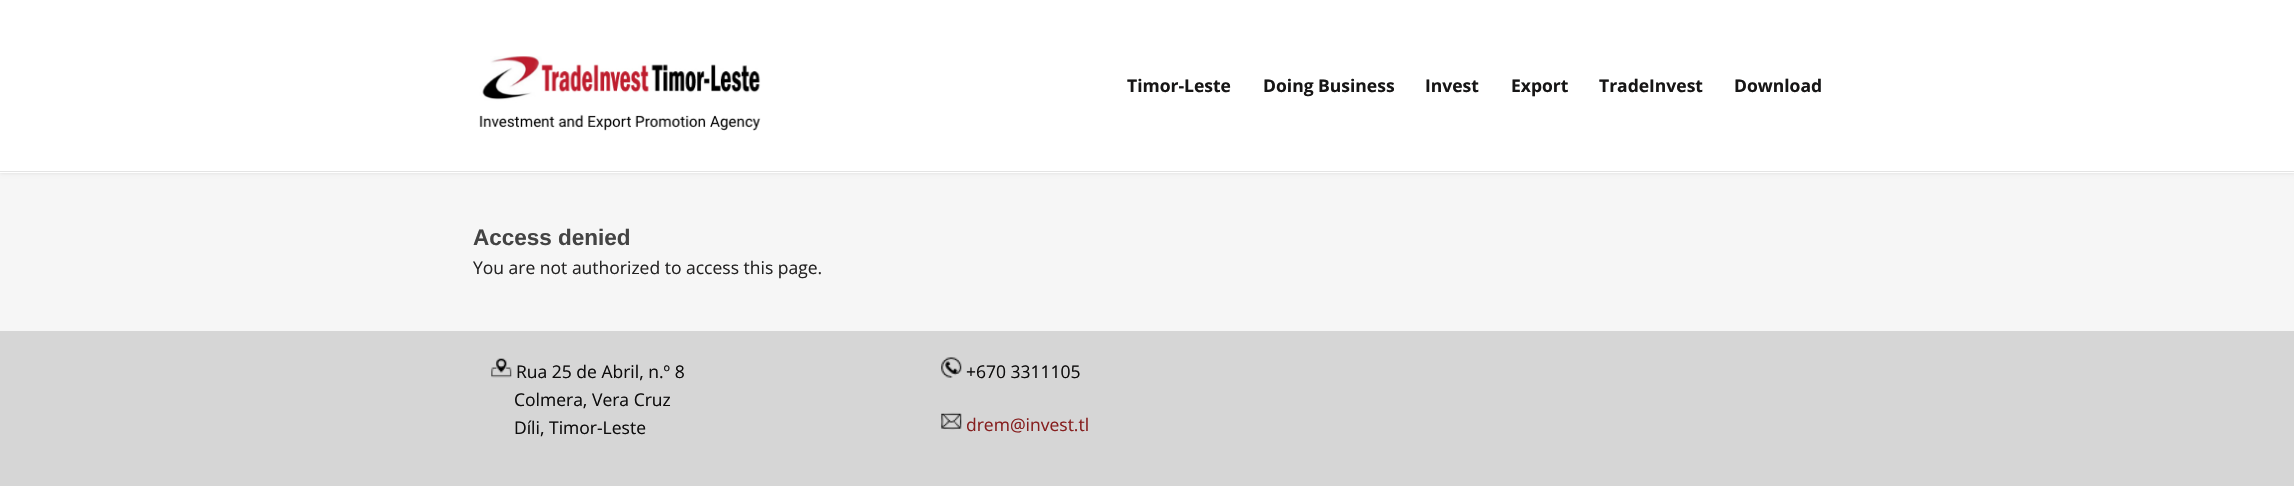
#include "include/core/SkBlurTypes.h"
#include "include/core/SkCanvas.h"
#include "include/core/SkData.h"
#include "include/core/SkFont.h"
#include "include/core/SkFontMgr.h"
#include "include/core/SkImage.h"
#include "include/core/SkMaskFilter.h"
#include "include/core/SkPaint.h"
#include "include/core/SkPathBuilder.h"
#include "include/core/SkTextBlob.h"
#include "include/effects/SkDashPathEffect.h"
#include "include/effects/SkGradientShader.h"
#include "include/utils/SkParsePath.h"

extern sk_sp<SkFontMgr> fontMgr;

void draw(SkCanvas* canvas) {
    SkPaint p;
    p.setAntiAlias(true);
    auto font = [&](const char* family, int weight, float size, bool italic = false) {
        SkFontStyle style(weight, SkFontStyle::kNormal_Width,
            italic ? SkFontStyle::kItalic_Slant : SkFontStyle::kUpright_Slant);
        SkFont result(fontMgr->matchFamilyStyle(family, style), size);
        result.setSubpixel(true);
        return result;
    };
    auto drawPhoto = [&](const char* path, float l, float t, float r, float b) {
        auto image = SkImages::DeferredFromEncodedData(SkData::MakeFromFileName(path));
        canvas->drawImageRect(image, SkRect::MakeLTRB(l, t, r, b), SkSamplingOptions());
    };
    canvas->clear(0xFFF6F6F6);
    p.setColor(0x1A000000);
    p.setMaskFilter(SkMaskFilter::MakeBlur(kNormal_SkBlurStyle, 2));
    canvas->drawRect(SkRect::MakeLTRB(0, 0, 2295, 173), p);
    p.setMaskFilter(nullptr);
    p.setColor(0xFFFFFFFF);
    canvas->drawRect(SkRect::MakeLTRB(0, 0, 2294, 173), p);
    p.setColor(0xFFE4E4E4);
    canvas->drawRect(SkRect::MakeLTRB(0, 171, 2294, 172), p);
    drawPhoto("media/1.png", 479, 56, 761, 131);
    auto font1 = font("Open Sans", 700, 17.5f);
    p.setColor(0xFF171616);
    {
        const struct { const char* s; float x, y; } items[] = {
            {"Timor-Leste", 1127, 92},
            {"Doing Business", 1263, 92},
            {"Invest", 1425, 92},
            {"Export", 1511, 92},
            {"TradeInvest", 1599, 92},
            {"Download", 1734, 92},
        };
        for (auto [s, x, y] : items) {
            canvas->drawString(s, x, y, font1, p);
        }
    }
    auto font2 = font("Liberation Sans", 700, 22.5f);
    p.setColor(0xFF444444);
    canvas->drawString("Access denied", 473, 245, font2, p);
    auto font3 = font("Open Sans", 400, 17.5f);
    p.setColor(0xFF252424);
    canvas->drawString("You are not authorized to access this page.", 473, 274, font3, p);
    p.setColor(0xFFD6D6D6);
    canvas->drawRect(SkRect::MakeLTRB(0, 331, 2294, 486), p);
    drawPhoto("media/2.png", 491, 358, 512, 378);
    p.setColor(0xFF0E0D0D);
    {
        const struct { const char* s; float x, y; } items[] = {
            {"Rua 25 de Abril, n.º 8", 516, 378},
            {"Colmera, Vera Cruz", 514, 406},
            {"Díli, Timor-Leste", 514, 434},
        };
        for (auto [s, x, y] : items) {
            canvas->drawString(s, x, y, font3, p);
        }
    }
    drawPhoto("media/3.png", 941, 357, 962, 378);
    canvas->drawString("+670 3311105", 966, 378, font3, p);
    drawPhoto("media/4.png", 941, 412, 962, 430);
    p.setColor(0xFF861F1F);
    canvas->drawString("drem@invest.tl", 966, 431, font3, p);
}
